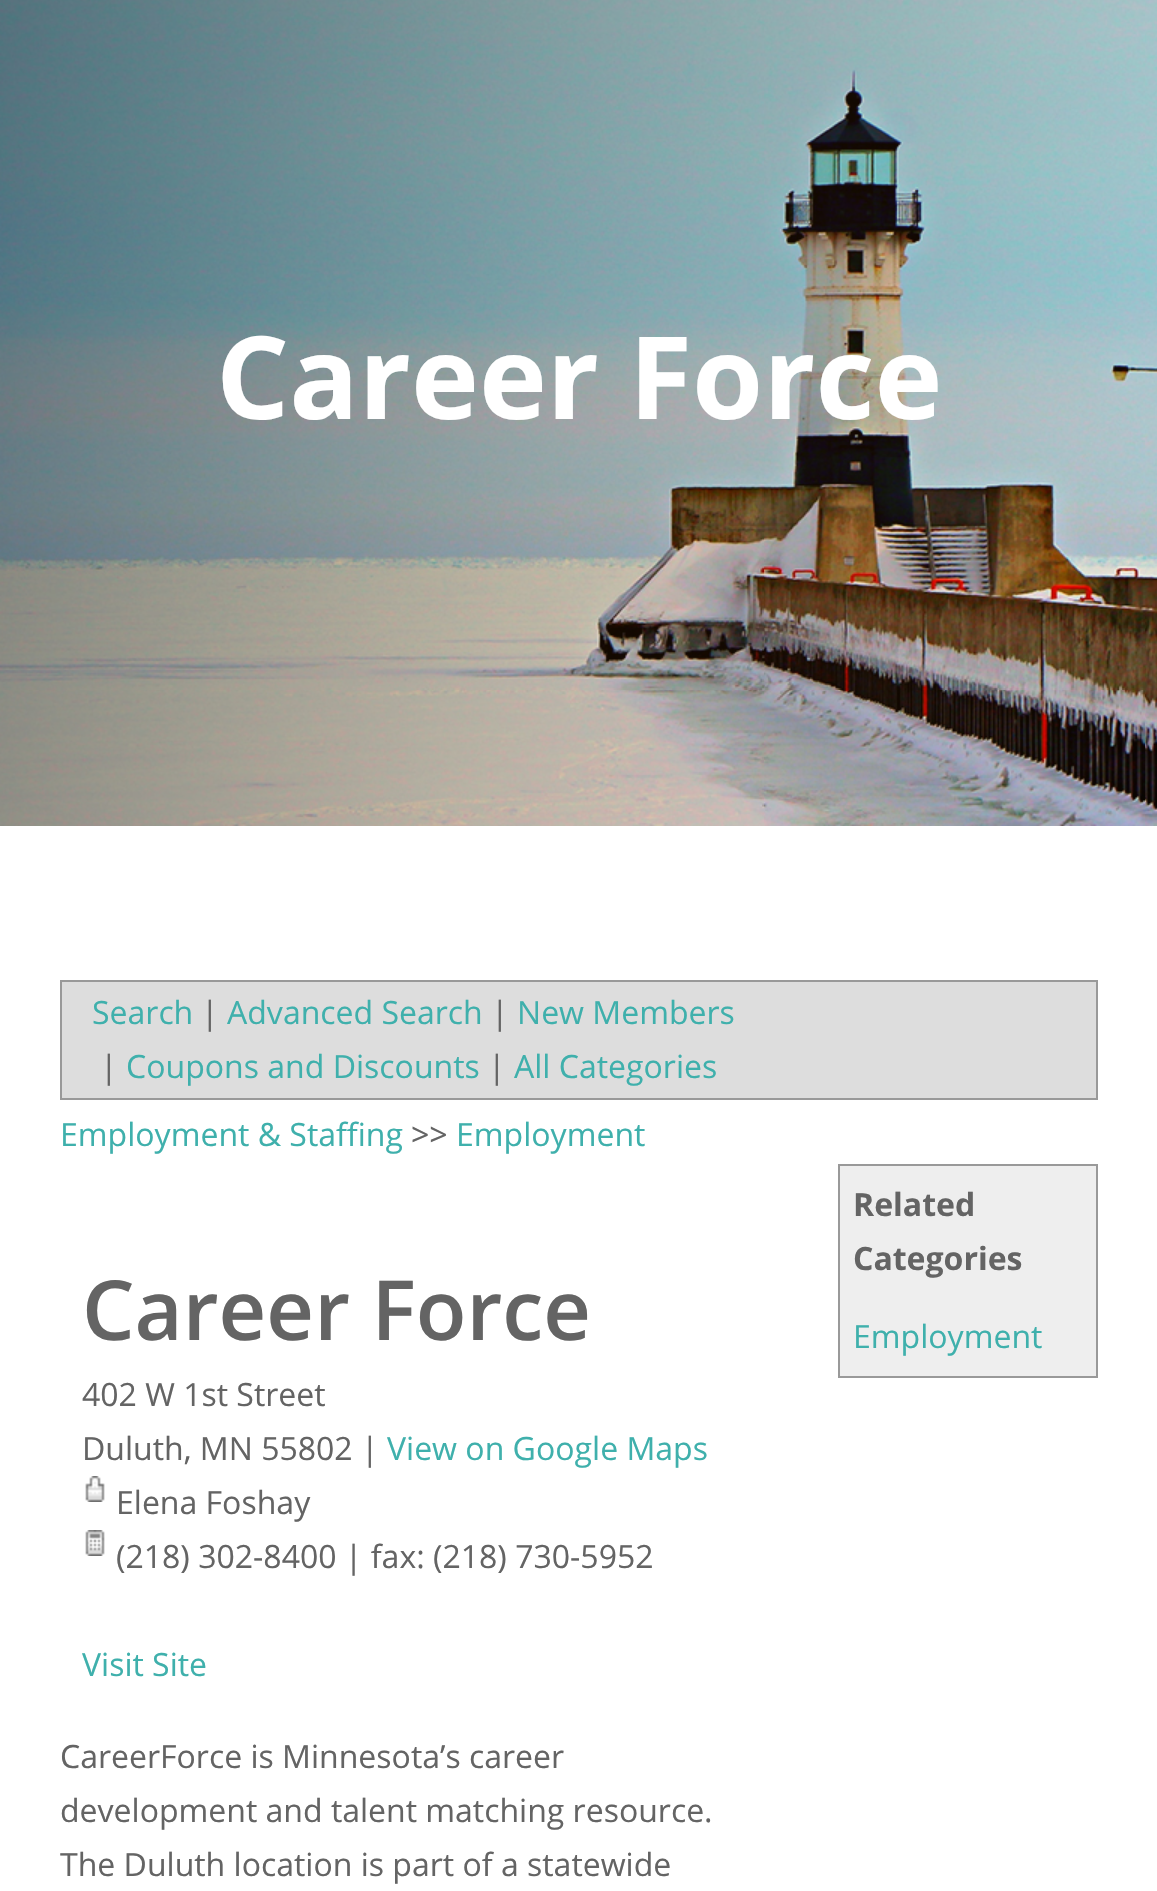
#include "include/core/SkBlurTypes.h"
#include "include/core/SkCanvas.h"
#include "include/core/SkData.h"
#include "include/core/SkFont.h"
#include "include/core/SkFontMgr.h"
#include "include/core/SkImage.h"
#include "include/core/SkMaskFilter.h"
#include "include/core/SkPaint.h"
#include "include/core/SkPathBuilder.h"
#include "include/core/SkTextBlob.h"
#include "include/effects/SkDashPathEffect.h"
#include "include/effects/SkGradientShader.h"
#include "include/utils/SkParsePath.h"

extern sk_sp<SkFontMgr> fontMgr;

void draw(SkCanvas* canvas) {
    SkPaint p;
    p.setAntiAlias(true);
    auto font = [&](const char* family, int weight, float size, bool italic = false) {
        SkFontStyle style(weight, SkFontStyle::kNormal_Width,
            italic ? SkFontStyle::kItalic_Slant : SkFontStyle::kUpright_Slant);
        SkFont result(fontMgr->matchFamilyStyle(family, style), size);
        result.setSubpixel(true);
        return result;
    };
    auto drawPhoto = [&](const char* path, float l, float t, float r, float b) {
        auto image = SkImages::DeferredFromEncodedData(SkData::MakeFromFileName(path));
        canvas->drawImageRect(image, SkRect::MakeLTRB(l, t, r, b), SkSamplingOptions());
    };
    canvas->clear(0xFFFFFFFF);
    drawPhoto("media/1.png", 0, 0, 1157, 826);
    auto font1 = font("Open Sans", 700, 115);
    p.setColor(0xFFFFFFFF);
    canvas->drawString("Career Force", 216, 419, font1, p);
    p.setColor(0xFFDDDDDD);
    canvas->drawRect(SkRect::MakeLTRB(61, 981, 1097, 1099), p);
    p.setStyle(SkPaint::kStroke_Style);
    p.setStrokeWidth(2);
    p.setColor(0xFF999999);
    canvas->drawRect(SkRect::MakeLTRB(61, 981, 1097, 1099), p);
    auto font2 = font("Open Sans", 400, 32);
    p.setStyle(SkPaint::kFill_Style);
    p.setColor(0xFF3FB0AC);
    canvas->drawString("Search", 92, 1024, font2, p);
    p.setColor(0xFF646464);
    canvas->drawString("|", 201, 1024, font2, p);
    p.setColor(0xFF3FB0AC);
    canvas->drawString("Advanced Search", 227, 1024, font2, p);
    p.setColor(0xFF646464);
    canvas->drawString("|", 491, 1024, font2, p);
    p.setColor(0xFF3FB0AC);
    canvas->drawString("New Members", 517, 1024, font2, p);
    p.setColor(0xFF646464);
    canvas->drawString("|", 100, 1078, font2, p);
    p.setColor(0xFF3FB0AC);
    canvas->drawString("Coupons and Discounts", 126, 1078, font2, p);
    p.setColor(0xFF646464);
    canvas->drawString("|", 488, 1078, font2, p);
    p.setColor(0xFF3FB0AC);
    canvas->drawString("All Categories", 514, 1078, font2, p);
    canvas->drawString("Employment & Staffing", 60, 1146, font2, p);
    p.setColor(0xFF646464);
    canvas->drawString(">>", 411, 1146, font2, p);
    p.setColor(0xFF3FB0AC);
    canvas->drawString("Employment", 456, 1146, font2, p);
    auto font3 = font("Open Sans", 600, 83);
    p.setColor(0xFF646464);
    canvas->drawString("Career Force", 82, 1340, font3, p);
    canvas->drawString("402 W 1st Street", 82, 1406, font2, p);
    canvas->drawString("Duluth, MN 55802 |", 82, 1460, font2, p);
    p.setColor(0xFF3FB0AC);
    canvas->drawString("View on Google Maps", 387, 1460, font2, p);
    drawPhoto("media/2.png", 85, 1476, 105, 1502);
    p.setColor(0xFF646464);
    canvas->drawString("Elena Foshay", 116, 1514, font2, p);
    drawPhoto("media/3.png", 85, 1530, 105, 1556);
    canvas->drawString("(218) 302-8400 | fax: (218) 730-5952", 116, 1568, font2, p);
    p.setColor(0xFF3FB0AC);
    canvas->drawString("Visit Site", 82, 1676, font2, p);
    p.setColor(0xFF646464);
    {
        const struct { const char* s; float x, y; } items[] = {
            {"CareerForce is Minnesota’s career", 60, 1768},
            {"development and talent matching resource.", 60, 1822},
            {"The Duluth location is part of a statewide", 60, 1876},
        };
        for (auto [s, x, y] : items) {
            canvas->drawString(s, x, y, font2, p);
        }
    }
    p.setColor(0xFFEEEEEE);
    canvas->drawRect(SkRect::MakeLTRB(839, 1165, 1097, 1377), p);
    p.setStyle(SkPaint::kStroke_Style);
    p.setColor(0xFF999999);
    canvas->drawRect(SkRect::MakeLTRB(839, 1165, 1097, 1377), p);
    auto font4 = font("Open Sans", 700, 32);
    p.setStyle(SkPaint::kFill_Style);
    p.setColor(0xFF646464);
    canvas->drawString("Related", 853, 1216, font4, p);
    canvas->drawString("Categories", 853, 1270, font4, p);
    p.setColor(0xFF3FB0AC);
    canvas->drawString("Employment", 853, 1348, font2, p);
}
